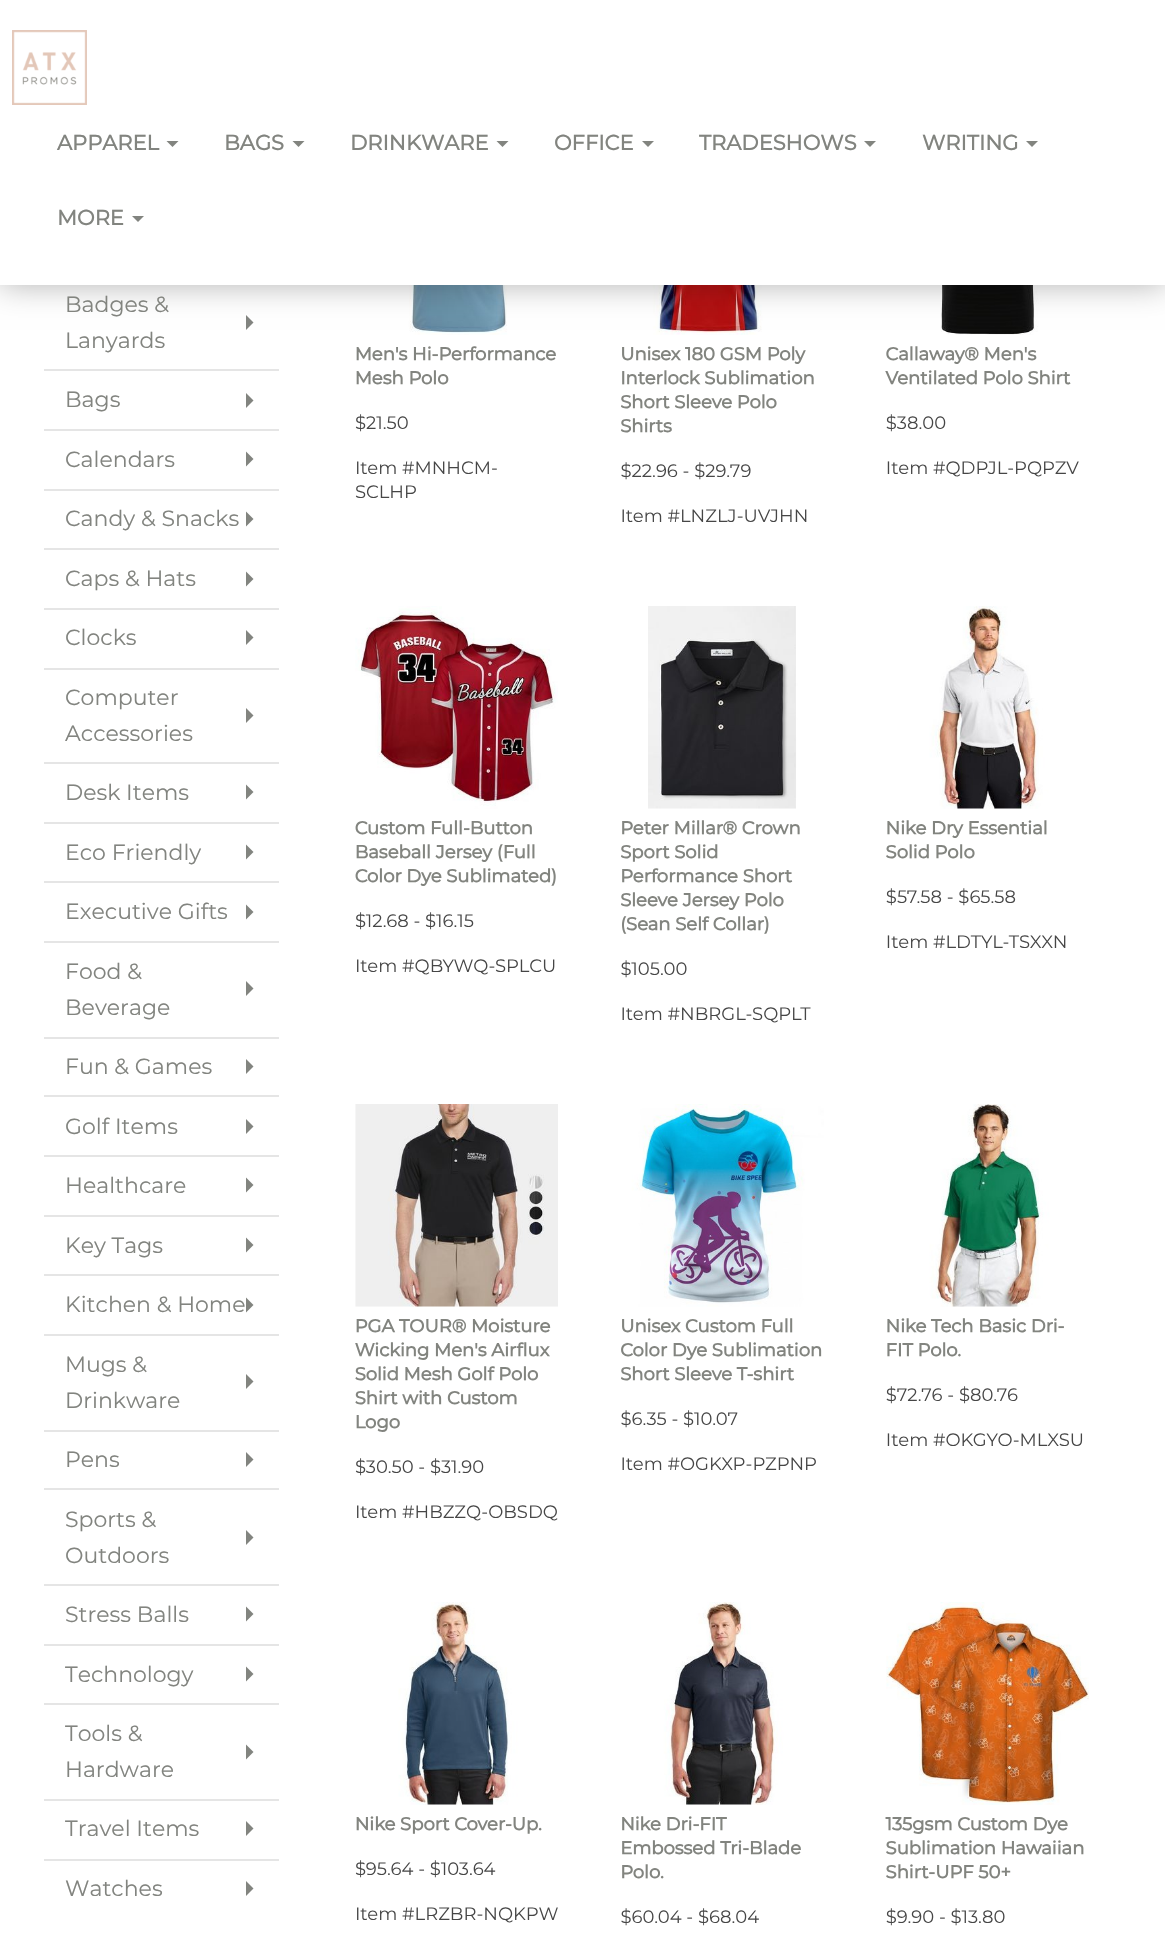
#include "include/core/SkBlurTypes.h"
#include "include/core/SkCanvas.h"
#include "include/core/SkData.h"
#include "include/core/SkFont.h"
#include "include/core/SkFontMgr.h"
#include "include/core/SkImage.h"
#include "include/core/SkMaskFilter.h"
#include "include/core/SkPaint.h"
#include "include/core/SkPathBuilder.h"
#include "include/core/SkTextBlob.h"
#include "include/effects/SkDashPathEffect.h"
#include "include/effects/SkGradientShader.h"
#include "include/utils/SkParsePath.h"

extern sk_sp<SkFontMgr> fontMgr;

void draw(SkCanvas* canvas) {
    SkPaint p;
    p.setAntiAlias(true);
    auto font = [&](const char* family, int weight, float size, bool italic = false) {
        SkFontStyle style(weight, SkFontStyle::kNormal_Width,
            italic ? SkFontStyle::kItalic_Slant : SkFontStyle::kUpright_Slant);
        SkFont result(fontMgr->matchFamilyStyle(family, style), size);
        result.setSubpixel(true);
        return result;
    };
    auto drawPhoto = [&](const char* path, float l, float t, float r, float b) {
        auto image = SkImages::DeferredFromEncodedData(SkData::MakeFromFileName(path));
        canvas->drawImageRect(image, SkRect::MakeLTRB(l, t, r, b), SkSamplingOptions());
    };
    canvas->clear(0xFFFFFFFF);
    p.setColor(0xFF82847F);
    canvas->drawPath(SkPathBuilder().moveTo(246, 330).lineTo(246, 315).lineTo(253.5f, 322.5f).close().detach(), p);
    drawPhoto("media/2.png", 355, 285, 1089, 1926);
    p.setColor(0x4D000000);
    p.setMaskFilter(SkMaskFilter::MakeBlur(kNormal_SkBlurStyle, 15));
    canvas->drawRect(SkRect::MakeLTRB(0, 0, 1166, 285), p);
    p.setMaskFilter(nullptr);
    p.setColor(0xFFFFFFFF);
    canvas->drawRect(SkRect::MakeLTRB(0, 0, 1165, 285), p);
    drawPhoto("media/1.png", 12, 30, 87, 105);
    auto font1 = font("Montserrat", 700, 21);
    p.setColor(0xFF82847F);
    canvas->drawString("APPAREL", 57, 150, font1, p);
    canvas->drawPath(SkPathBuilder().moveTo(166.5f, 141).lineTo(178.5f, 141).lineTo(172.5f, 147).close().detach(), p);
    canvas->drawString("BAGS", 224, 150, font1, p);
    canvas->drawPath(SkPathBuilder().moveTo(292.5f, 141).lineTo(304.5f, 141).lineTo(298.5f, 147).close().detach(), p);
    canvas->drawString("DRINKWARE", 350, 150, font1, p);
    canvas->drawPath(SkPathBuilder().moveTo(496.5f, 141).lineTo(508.5f, 141).lineTo(502.5f, 147).close().detach(), p);
    canvas->drawString("OFFICE", 554, 150, font1, p);
    canvas->drawPath(SkPathBuilder().moveTo(642, 141).lineTo(654, 141).lineTo(648, 147).close().detach(), p);
    canvas->drawString("TRADESHOWS", 699, 150, font1, p);
    canvas->drawPath(SkPathBuilder().moveTo(864, 141).lineTo(876, 141).lineTo(870, 147).close().detach(), p);
    canvas->drawString("WRITING", 922, 150, font1, p);
    canvas->drawPath(SkPathBuilder().moveTo(1026, 141).lineTo(1038, 141).lineTo(1032, 147).close().detach(), p);
    canvas->drawString("MORE", 57, 225, font1, p);
    canvas->drawPath(SkPathBuilder().moveTo(132, 216).lineTo(144, 216).lineTo(138, 222).close().detach(), p);
    auto font2 = font("Montserrat", 100, 22);
    canvas->drawString("Badges &", 65, 312, font2, p);
    canvas->drawString("Lanyards", 65, 348, font2, p);
    p.setColor(0xFFE5E5E5);
    canvas->drawRect(SkRect::MakeLTRB(44, 369, 279, 371), p);
    p.setColor(0xFF82847F);
    canvas->drawString("Bags", 65, 407, font2, p);
    canvas->drawPath(SkPathBuilder().moveTo(246, 408).lineTo(246, 393).lineTo(253.5f, 400.5f).close().detach(), p);
    p.setColor(0xFFE5E5E5);
    canvas->drawRect(SkRect::MakeLTRB(44, 429, 279, 431), p);
    p.setColor(0xFF82847F);
    canvas->drawString("Calendars", 65, 467, font2, p);
    canvas->drawPath(SkPathBuilder().moveTo(246, 466.5f).lineTo(246, 451.5f).lineTo(253.5f, 459).close().detach(), p);
    p.setColor(0xFFE5E5E5);
    canvas->drawRect(SkRect::MakeLTRB(44, 489, 279, 491), p);
    p.setColor(0xFF82847F);
    canvas->drawString("Candy & Snacks", 65, 526, font2, p);
    canvas->drawPath(SkPathBuilder().moveTo(246, 526.5f).lineTo(246, 511.5f).lineTo(253.5f, 519).close().detach(), p);
    p.setColor(0xFFE5E5E5);
    canvas->drawRect(SkRect::MakeLTRB(44, 548, 279, 550), p);
    p.setColor(0xFF82847F);
    canvas->drawString("Caps & Hats", 65, 586, font2, p);
    canvas->drawPath(SkPathBuilder().moveTo(246, 586.5f).lineTo(246, 571.5f).lineTo(253.5f, 579).close().detach(), p);
    p.setColor(0xFFE5E5E5);
    canvas->drawRect(SkRect::MakeLTRB(44, 608, 279, 610), p);
    p.setColor(0xFF82847F);
    canvas->drawString("Clocks", 65, 645, font2, p);
    canvas->drawPath(SkPathBuilder().moveTo(246, 645).lineTo(246, 630).lineTo(253.5f, 637.5f).close().detach(), p);
    p.setColor(0xFFE5E5E5);
    canvas->drawRect(SkRect::MakeLTRB(44, 668, 279, 670), p);
    p.setColor(0xFF82847F);
    canvas->drawString("Computer", 65, 705, font2, p);
    canvas->drawPath(SkPathBuilder().moveTo(246, 723).lineTo(246, 708).lineTo(253.5f, 715.5f).close().detach(), p);
    canvas->drawString("Accessories", 65, 741, font2, p);
    p.setColor(0xFFE5E5E5);
    canvas->drawRect(SkRect::MakeLTRB(44, 762, 279, 764), p);
    p.setColor(0xFF82847F);
    canvas->drawString("Desk Items", 65, 800, font2, p);
    canvas->drawPath(SkPathBuilder().moveTo(246, 799.5f).lineTo(246, 784.5f).lineTo(253.5f, 792).close().detach(), p);
    p.setColor(0xFFE5E5E5);
    canvas->drawRect(SkRect::MakeLTRB(44, 822, 279, 824), p);
    p.setColor(0xFF82847F);
    canvas->drawString("Eco Friendly", 65, 860, font2, p);
    canvas->drawPath(SkPathBuilder().moveTo(246, 859.5f).lineTo(246, 844.5f).lineTo(253.5f, 852).close().detach(), p);
    p.setColor(0xFFE5E5E5);
    canvas->drawRect(SkRect::MakeLTRB(44, 881, 279, 883), p);
    p.setColor(0xFF82847F);
    canvas->drawString("Executive Gifts", 65, 919, font2, p);
    canvas->drawPath(SkPathBuilder().moveTo(246, 919.5f).lineTo(246, 904.5f).lineTo(253.5f, 912).close().detach(), p);
    p.setColor(0xFFE5E5E5);
    canvas->drawRect(SkRect::MakeLTRB(44, 941, 279, 943), p);
    p.setColor(0xFF82847F);
    canvas->drawString("Food &", 65, 979, font2, p);
    canvas->drawPath(SkPathBuilder().moveTo(246, 996).lineTo(246, 981).lineTo(253.5f, 988.5f).close().detach(), p);
    canvas->drawString("Beverage", 65, 1015, font2, p);
    p.setColor(0xFFE5E5E5);
    canvas->drawRect(SkRect::MakeLTRB(44, 1037, 279, 1039), p);
    p.setColor(0xFF82847F);
    canvas->drawString("Fun & Games", 65, 1074, font2, p);
    canvas->drawPath(SkPathBuilder().moveTo(246, 1074).lineTo(246, 1059).lineTo(253.5f, 1066.5f).close().detach(), p);
    p.setColor(0xFFE5E5E5);
    canvas->drawRect(SkRect::MakeLTRB(44, 1095, 279, 1097), p);
    p.setColor(0xFF82847F);
    canvas->drawString("Golf Items", 65, 1134, font2, p);
    canvas->drawPath(SkPathBuilder().moveTo(246, 1134).lineTo(246, 1119).lineTo(253.5f, 1126.5f).close().detach(), p);
    p.setColor(0xFFE5E5E5);
    canvas->drawRect(SkRect::MakeLTRB(44, 1155, 279, 1157), p);
    p.setColor(0xFF82847F);
    canvas->drawString("Healthcare", 65, 1193, font2, p);
    canvas->drawPath(SkPathBuilder().moveTo(246, 1192.5f).lineTo(246, 1177.5f).lineTo(253.5f, 1185).close().detach(), p);
    p.setColor(0xFFE5E5E5);
    canvas->drawRect(SkRect::MakeLTRB(44, 1215, 279, 1217), p);
    p.setColor(0xFF82847F);
    canvas->drawString("Key Tags", 65, 1253, font2, p);
    canvas->drawPath(SkPathBuilder().moveTo(246, 1252.5f).lineTo(246, 1237.5f).lineTo(253.5f, 1245).close().detach(), p);
    p.setColor(0xFFE5E5E5);
    canvas->drawRect(SkRect::MakeLTRB(44, 1274, 279, 1276), p);
    p.setColor(0xFF82847F);
    canvas->drawString("Kitchen & Home", 65, 1312, font2, p);
    canvas->drawPath(SkPathBuilder().moveTo(246, 1312.5f).lineTo(246, 1297.5f).lineTo(253.5f, 1305).close().detach(), p);
    p.setColor(0xFFE5E5E5);
    canvas->drawRect(SkRect::MakeLTRB(44, 1334, 279, 1336), p);
    p.setColor(0xFF82847F);
    canvas->drawString("Mugs &", 65, 1372, font2, p);
    canvas->drawPath(SkPathBuilder().moveTo(246, 1389).lineTo(246, 1374).lineTo(253.5f, 1381.5f).close().detach(), p);
    canvas->drawString("Drinkware", 65, 1408, font2, p);
    p.setColor(0xFFE5E5E5);
    canvas->drawRect(SkRect::MakeLTRB(44, 1430, 279, 1432), p);
    p.setColor(0xFF82847F);
    canvas->drawString("Pens", 65, 1467, font2, p);
    canvas->drawPath(SkPathBuilder().moveTo(246, 1467).lineTo(246, 1452).lineTo(253.5f, 1459.5f).close().detach(), p);
    p.setColor(0xFFE5E5E5);
    canvas->drawRect(SkRect::MakeLTRB(44, 1488, 279, 1490), p);
    p.setColor(0xFF82847F);
    canvas->drawString("Sports &", 65, 1527, font2, p);
    canvas->drawPath(SkPathBuilder().moveTo(246, 1545).lineTo(246, 1530).lineTo(253.5f, 1537.5f).close().detach(), p);
    canvas->drawString("Outdoors", 65, 1563, font2, p);
    p.setColor(0xFFE5E5E5);
    canvas->drawRect(SkRect::MakeLTRB(44, 1584, 279, 1586), p);
    p.setColor(0xFF82847F);
    canvas->drawString("Stress Balls", 65, 1622, font2, p);
    canvas->drawPath(SkPathBuilder().moveTo(246, 1621.5f).lineTo(246, 1606.5f).lineTo(253.5f, 1614).close().detach(), p);
    p.setColor(0xFFE5E5E5);
    canvas->drawRect(SkRect::MakeLTRB(44, 1644, 279, 1646), p);
    p.setColor(0xFF82847F);
    canvas->drawString("Technology", 65, 1682, font2, p);
    canvas->drawPath(SkPathBuilder().moveTo(246, 1681.5f).lineTo(246, 1666.5f).lineTo(253.5f, 1674).close().detach(), p);
    p.setColor(0xFFE5E5E5);
    canvas->drawRect(SkRect::MakeLTRB(44, 1703, 279, 1705), p);
    p.setColor(0xFF82847F);
    canvas->drawString("Tools &", 65, 1741, font2, p);
    canvas->drawPath(SkPathBuilder().moveTo(246, 1759.5f).lineTo(246, 1744.5f).lineTo(253.5f, 1752).close().detach(), p);
    canvas->drawString("Hardware", 65, 1777, font2, p);
    p.setColor(0xFFE5E5E5);
    canvas->drawRect(SkRect::MakeLTRB(44, 1799, 279, 1801), p);
    p.setColor(0xFF82847F);
    canvas->drawString("Travel Items", 65, 1836, font2, p);
    canvas->drawPath(SkPathBuilder().moveTo(246, 1836).lineTo(246, 1821).lineTo(253.5f, 1828.5f).close().detach(), p);
    p.setColor(0xFFE5E5E5);
    canvas->drawRect(SkRect::MakeLTRB(44, 1859, 279, 1861), p);
    p.setColor(0xFF82847F);
    canvas->drawString("Watches", 65, 1896, font2, p);
    canvas->drawPath(SkPathBuilder().moveTo(246, 1896).lineTo(246, 1881).lineTo(253.5f, 1888.5f).close().detach(), p);
}
